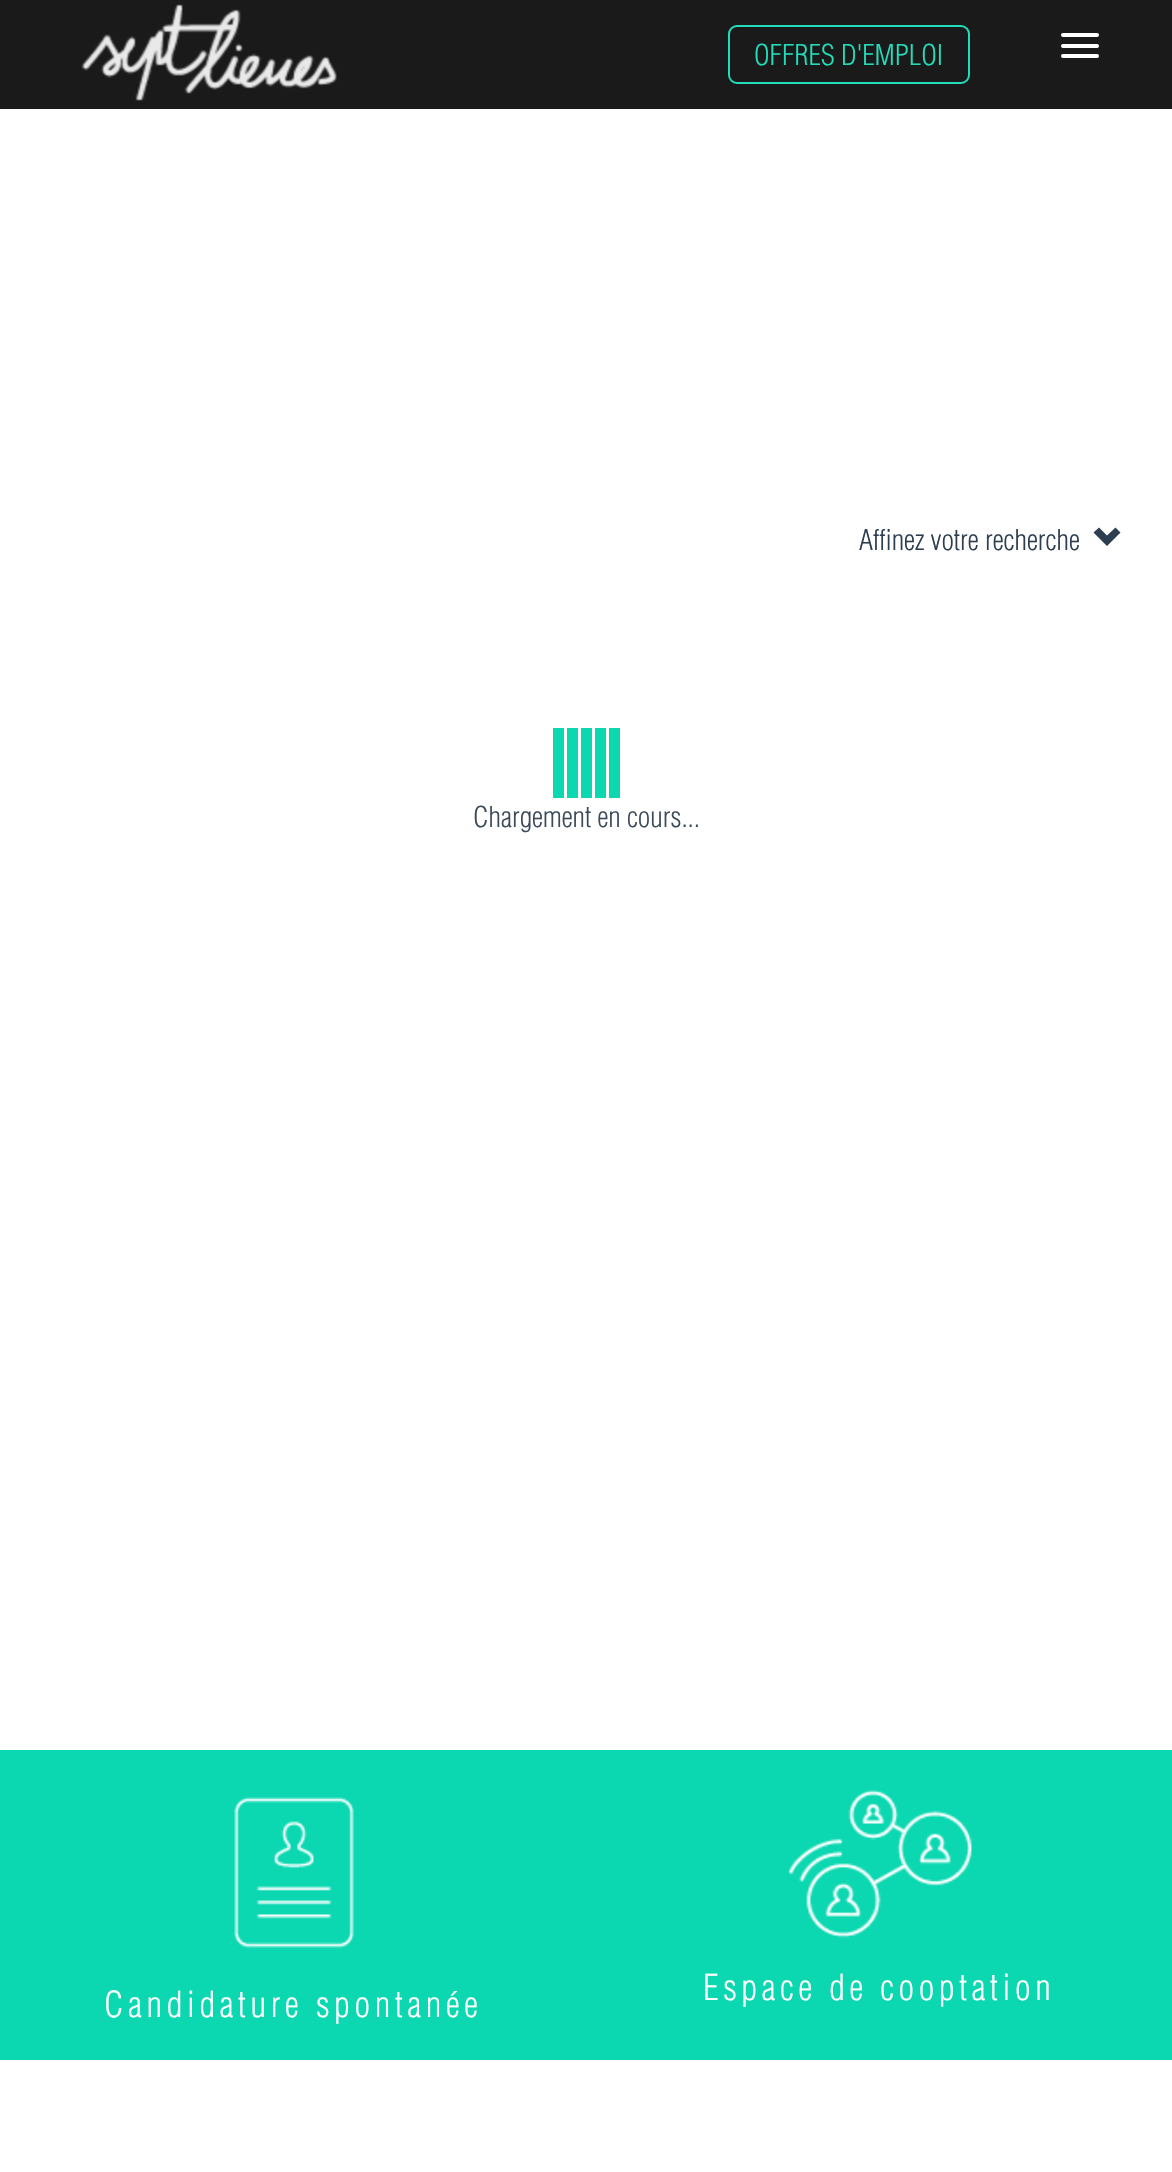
#include "include/core/SkBlurTypes.h"
#include "include/core/SkCanvas.h"
#include "include/core/SkData.h"
#include "include/core/SkFont.h"
#include "include/core/SkFontMgr.h"
#include "include/core/SkImage.h"
#include "include/core/SkMaskFilter.h"
#include "include/core/SkPaint.h"
#include "include/core/SkPathBuilder.h"
#include "include/core/SkTextBlob.h"
#include "include/effects/SkDashPathEffect.h"
#include "include/effects/SkGradientShader.h"
#include "include/utils/SkParsePath.h"

extern sk_sp<SkFontMgr> fontMgr;

void draw(SkCanvas* canvas) {
    SkPaint p;
    p.setAntiAlias(true);
    auto font = [&](const char* family, int weight, float size, bool italic = false) {
        SkFontStyle style(weight, SkFontStyle::kNormal_Width,
            italic ? SkFontStyle::kItalic_Slant : SkFontStyle::kUpright_Slant);
        SkFont result(fontMgr->matchFamilyStyle(family, style), size);
        result.setSubpixel(true);
        return result;
    };
    auto drawTracked = [&](const char* s, float x, float y, const SkFont& font, const SkPaint& ink, float letter, float word) {
        std::vector<SkGlyphID> glyphs(font.countText(s, strlen(s), SkTextEncoding::kUTF8));
        std::vector<float> xs(glyphs.size());
        font.textToGlyphs(s, strlen(s), SkTextEncoding::kUTF8, glyphs);
        font.getXPos(glyphs, xs, x);
        float extra = 0;
        for (size_t i = 0; i < glyphs.size(); i++) {
            xs[i] += extra;
            extra += letter + word * (glyphs[i] == font.unicharToGlyph(' '));
        }
        canvas->drawTextBlob(SkTextBlob::MakeFromPosHGlyphs(glyphs, xs, y, font), 0, 0, ink);
    };
    auto drawPhoto = [&](const char* path, float l, float t, float r, float b) {
        auto image = SkImages::DeferredFromEncodedData(SkData::MakeFromFileName(path));
        canvas->drawImageRect(image, SkRect::MakeLTRB(l, t, r, b), SkSamplingOptions());
    };
    canvas->clear(0xFFFFFFFF);
    p.setColor(0xFF1A1A1A);
    canvas->drawRect(SkRect::MakeLTRB(0, 0, 1172, 109), p);
    drawPhoto("media/1.png", 81, 4, 337, 101);
    p.setStyle(SkPaint::kStroke_Style);
    p.setStrokeWidth(2);
    p.setColor(0xFF23DCB9);
    canvas->drawRoundRect(SkRect::MakeLTRB(729, 26, 969, 83), 8, 8, p);
    auto font1 = font("Helvetica", 300, 28);
    p.setStyle(SkPaint::kFill_Style);
    canvas->drawString("OFFRES D'EMPLOI", 754, 65, font1, p);
    p.setColor(0xFFFFFFFF);
    canvas->drawRoundRect(SkRect::MakeLTRB(1061, 33, 1099, 37), 2, 2, p);
    canvas->drawRoundRect(SkRect::MakeLTRB(1061, 44, 1099, 48), 2, 2, p);
    canvas->drawRoundRect(SkRect::MakeLTRB(1061, 54, 1099, 58), 2, 2, p);
    p.setColor(0xFF2D3E50);
    canvas->drawString("Affinez votre recherche", 859, 550, font1, p);
    canvas->drawPath(SkPathBuilder().moveTo(1093.5f, 532.5f).lineTo(1107, 546).lineTo(1120.5f, 532.5f).lineTo(1115.5f, 527.5f).lineTo(1107, 535.5f).lineTo(1099, 527.5f).close().detach(), p);
    {
        const struct { float l, t, r, b; SkColor color; } items[] = {
            {553, 728, 564, 798, 0xFF0BD8B1},
            {567, 728, 578, 798, 0xFF0BD8B1},
            {581, 728, 592, 798, 0xFF0BD8B1},
            {595, 728, 606, 798, 0xFF0BD8B1},
            {609, 728, 620, 798, 0xFF0BD8B1},
        };
        for (auto [l, t, r, b, color] : items) {
            p.setColor(color);
            canvas->drawRect(SkRect::MakeLTRB(l, t, r, b), p);
        }
    }
    p.setColor(0xFF3C4B5B);
    canvas->drawString("Chargement en cours...", 473, 827, font1, p);
    p.setColor(0xFF0BD8B1);
    canvas->drawRect(SkRect::MakeLTRB(0, 1750, 1172, 2060), p);
    drawPhoto("media/2.png", 234, 1797, 354, 1949);
    auto font2 = font("Helvetica", 300, 35);
    p.setColor(0xFFFFFFFF);
    drawTracked("Candidature spontanée", 104, 2017, font2, p, 4.7f, 0);
    drawPhoto("media/3.png", 788, 1790, 972, 1938);
    drawTracked("Espace de cooptation", 703, 2000, font2, p, 4.7f, 0);
}
